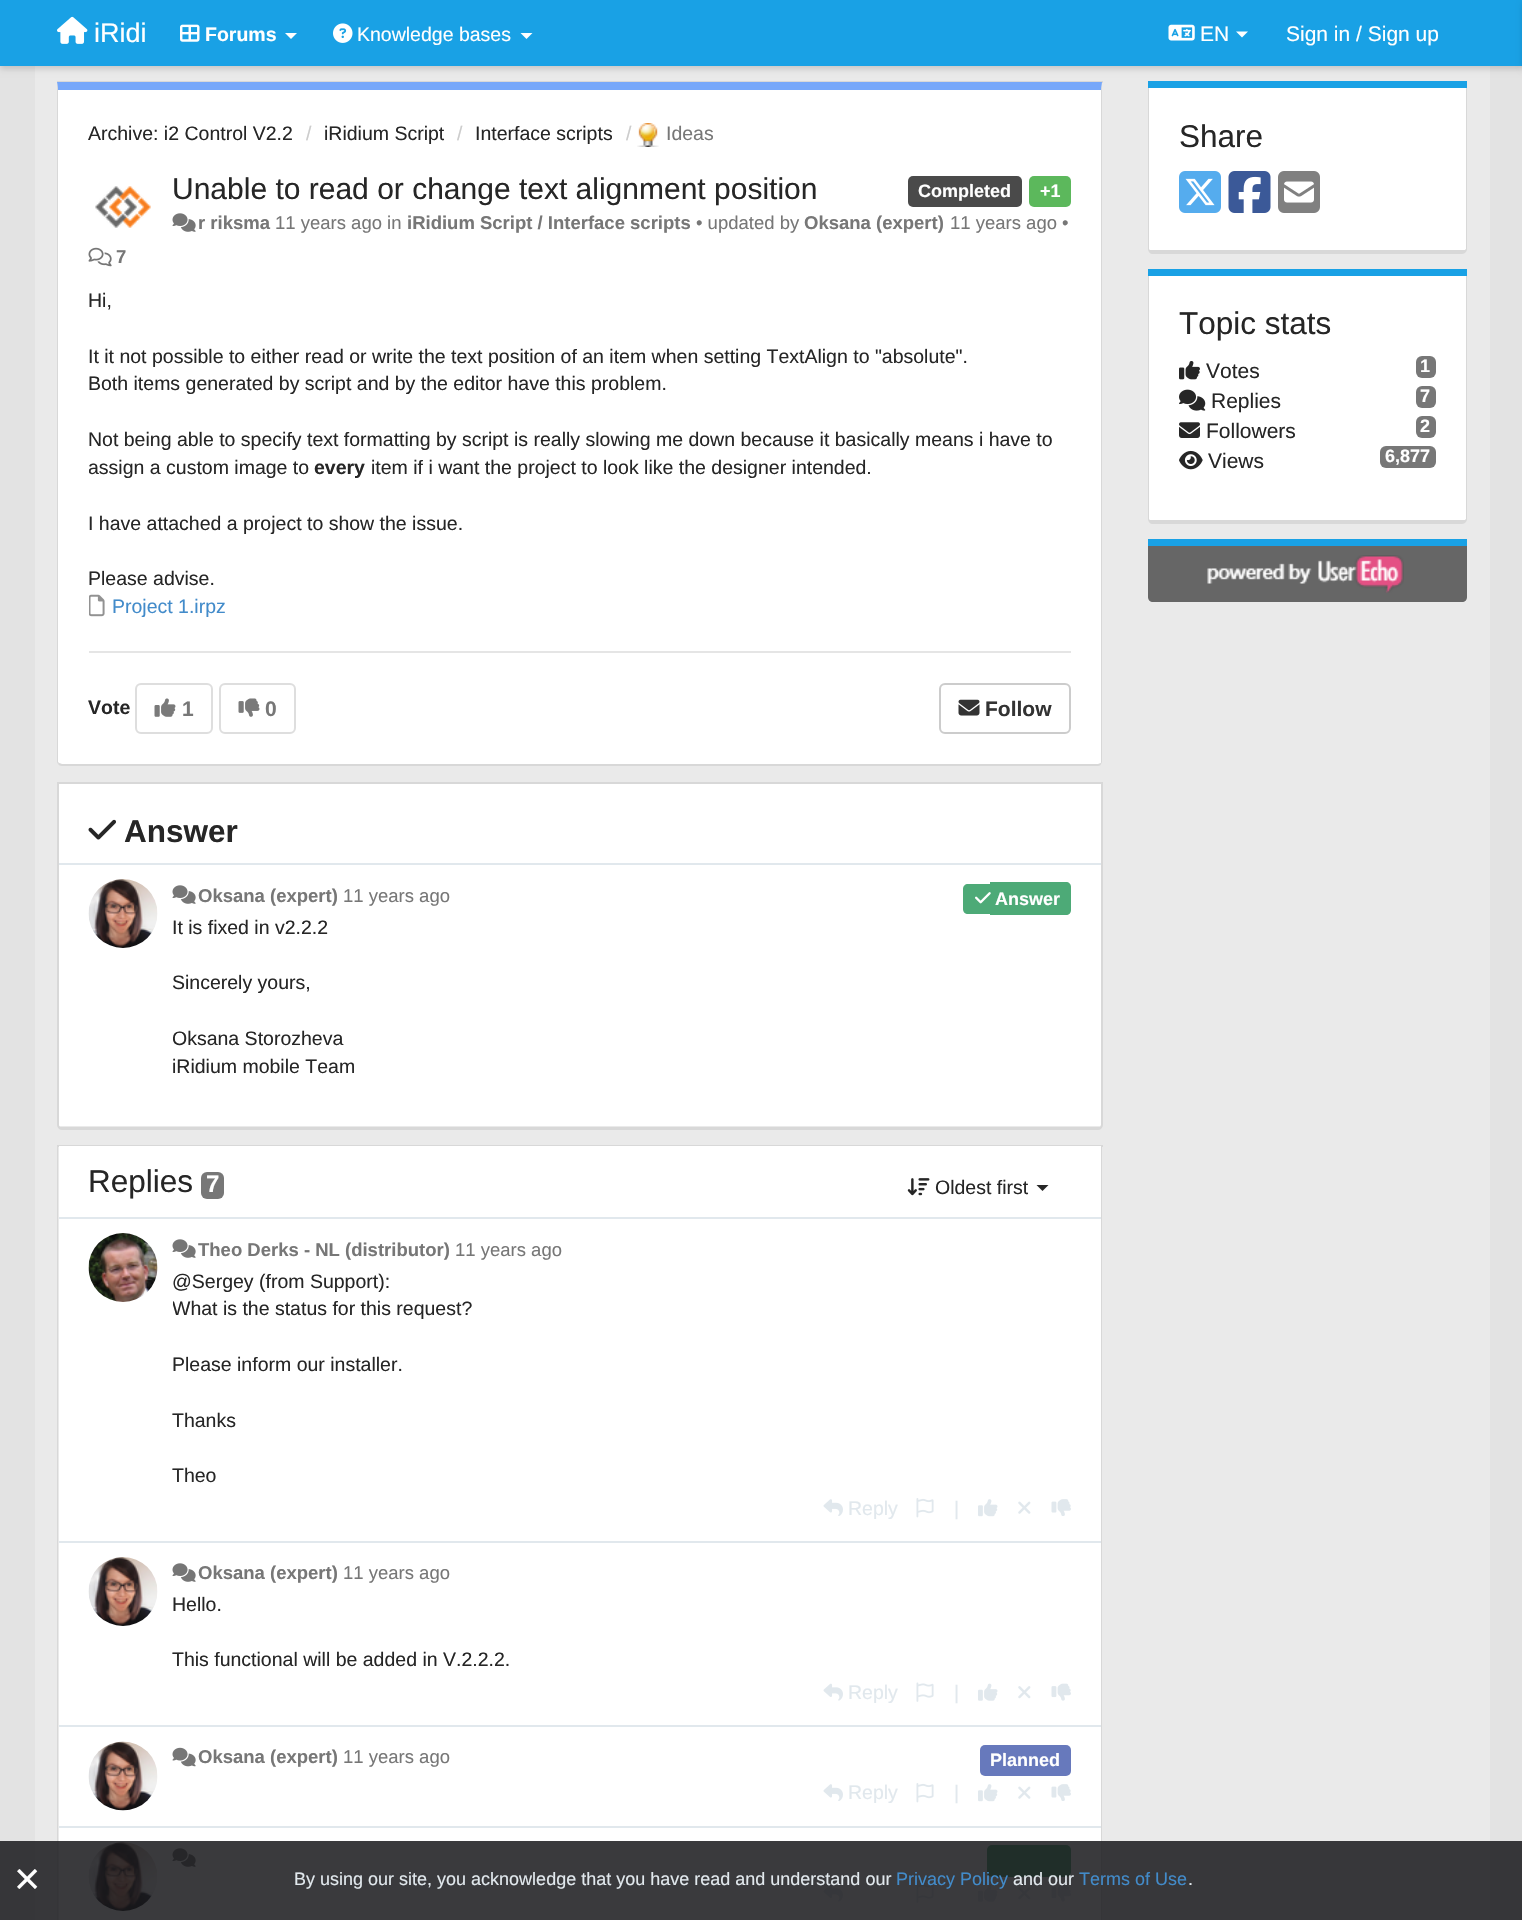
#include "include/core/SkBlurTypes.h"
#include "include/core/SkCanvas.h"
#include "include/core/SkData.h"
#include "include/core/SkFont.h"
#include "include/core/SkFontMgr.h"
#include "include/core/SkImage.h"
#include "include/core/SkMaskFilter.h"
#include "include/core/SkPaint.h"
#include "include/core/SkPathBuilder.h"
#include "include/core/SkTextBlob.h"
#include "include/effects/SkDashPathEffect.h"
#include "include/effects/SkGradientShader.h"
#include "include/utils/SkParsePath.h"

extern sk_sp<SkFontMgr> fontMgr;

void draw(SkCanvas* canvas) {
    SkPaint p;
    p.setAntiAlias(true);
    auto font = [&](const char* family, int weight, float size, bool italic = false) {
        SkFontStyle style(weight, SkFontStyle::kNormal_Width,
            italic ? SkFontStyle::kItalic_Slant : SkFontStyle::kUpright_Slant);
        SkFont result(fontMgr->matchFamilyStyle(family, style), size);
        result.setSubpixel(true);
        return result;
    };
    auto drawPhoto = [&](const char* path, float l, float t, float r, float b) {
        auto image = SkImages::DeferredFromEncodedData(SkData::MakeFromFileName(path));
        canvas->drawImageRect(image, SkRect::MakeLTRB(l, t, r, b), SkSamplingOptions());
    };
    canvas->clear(0xFFE3E3E3);
    p.setColor(0xFFEAEAEA);
    canvas->drawRect(SkRect::MakeLTRB(35, 66, 1490, 1920), p);
    p.setColor(0x26000000);
    p.setMaskFilter(SkMaskFilter::MakeBlur(kNormal_SkBlurStyle, 3));
    canvas->drawRect(SkRect::MakeLTRB(0, 3, 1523, 69), p);
    p.setMaskFilter(nullptr);
    p.setColor(0xFF19A1E5);
    canvas->drawRect(SkRect::MakeLTRB(0, 0, 1522, 66), p);
    drawPhoto("media/1.png", 57, 16, 88, 44);
    auto font1 = font("Liberation Sans", 400, 27);
    p.setColor(0xFFFFFFFF);
    canvas->drawString("iRidi", 94, 42, font1, p);
    drawPhoto("media/2.png", 180, 24, 200, 42);
    auto font2 = font("Liberation Sans", 700, 19.5f);
    canvas->drawString("Forums", 205, 41, font2, p);
    canvas->drawPath(SkPathBuilder().moveTo(285, 33).lineTo(297, 33).lineTo(291, 39).close().detach(), p);
    drawPhoto("media/3.png", 333, 23, 353, 43);
    auto font3 = font("Liberation Sans", 400, 19.5f);
    canvas->drawString("Knowledge bases", 357, 41, font3, p);
    canvas->drawPath(SkPathBuilder().moveTo(520.5f, 33).lineTo(532.5f, 33).lineTo(526.5f, 39).close().detach(), p);
    drawPhoto("media/4.png", 1168, 24, 1195, 41);
    auto font4 = font("Liberation Sans", 400, 21);
    canvas->drawString("EN", 1200, 41, font4, p);
    canvas->drawPath(SkPathBuilder().moveTo(1236, 31.5f).lineTo(1248, 31.5f).lineTo(1242, 37.5f).close().detach(), p);
    canvas->drawString("Sign in / Sign up", 1286, 41, font4, p);
    p.setColor(0x26000000);
    p.setMaskFilter(SkMaskFilter::MakeBlur(kNormal_SkBlurStyle, 3));
    canvas->drawRect(SkRect::MakeLTRB(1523, 3, 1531, 69), p);
    p.setMaskFilter(nullptr);
    p.setColor(0xFFD8D8D8);
    canvas->drawRect(SkRect::MakeLTRB(57, 81, 1103, 83), p);
    p.setColor(0xFFFFFFFF);
    canvas->drawPath(SkPathBuilder().moveTo(58, 90).lineTo(1101, 90).lineTo(1101, 762).cubicTo(1101, 763, 1100, 764, 1098, 764).lineTo(62, 764).cubicTo(60, 764, 58, 763, 58, 762).close().detach(), p);
    p.setColor(0xFF76A7FA);
    canvas->drawPath(SkPathBuilder().moveTo(57, 82).lineTo(1102, 82).lineTo(1101, 90).lineTo(58, 90).close().detach(), p);
    p.setColor(0xFFD8D8D8);
    canvas->drawPath(SkPathBuilder().moveTo(1102, 85).lineTo(1102, 762).lineTo(1101, 764).lineTo(1101, 763).lineTo(1101, 90).close().detach(), p);
    canvas->drawPath(SkPathBuilder().moveTo(1101, 764).cubicTo(1101, 765, 1099, 766, 1098, 766).lineTo(62, 766).cubicTo(60, 766, 59, 765, 58, 764).lineTo(59, 763).lineTo(62, 764).lineTo(1098, 764).lineTo(1101, 763).close().detach(), p);
    canvas->drawPath(SkPathBuilder().moveTo(58, 90).lineTo(57, 82).lineTo(57, 762).lineTo(58, 764).lineTo(59, 763).lineTo(58, 762).close().detach(), p);
    p.setColor(0xFF262626);
    canvas->drawString("Archive: i2 Control V2.2", 88, 140, font3, p);
    p.setColor(0xFFCCCCCC);
    canvas->drawString("/", 306, 140, font3, p);
    p.setColor(0xFF262626);
    canvas->drawString("iRidium Script", 324, 140, font3, p);
    p.setColor(0xFFCCCCCC);
    canvas->drawString("/", 457, 140, font3, p);
    p.setColor(0xFF262626);
    canvas->drawString("Interface scripts", 475, 140, font3, p);
    p.setColor(0xFFCCCCCC);
    canvas->drawString("/", 626, 140, font3, p);
    drawPhoto("media/5.png", 637, 123, 659, 147);
    p.setColor(0xFF777777);
    canvas->drawString("Ideas", 666, 140, font3, p);
    drawPhoto("media/6.png", 95, 186, 151, 228);
    auto font5 = font("Liberation Sans", 400, 30);
    p.setColor(0xFF262626);
    canvas->drawString("Unable to read or change text alignment position", 172, 199, font5, p);
    p.setColor(0xFF4A4A4A);
    canvas->drawRoundRect(SkRect::MakeLTRB(908, 176, 1022, 207), 5, 5, p);
    auto font6 = font("Liberation Sans", 700, 18);
    p.setColor(0xFFFFFFFF);
    canvas->drawString("Completed", 918, 197, font6, p);
    p.setColor(0xFF5CB85C);
    canvas->drawRoundRect(SkRect::MakeLTRB(1029, 176, 1071, 207), 5, 5, p);
    p.setColor(0xFFFFFFFF);
    canvas->drawString("+1", 1040, 197, font6, p);
    drawPhoto("media/7.png", 172, 213, 196, 232);
    auto font7 = font("Liberation Sans", 700, 18.5f);
    p.setColor(0xFF777777);
    canvas->drawString("r riksma", 198, 229, font7, p);
    auto font8 = font("Liberation Sans", 400, 18.5f);
    canvas->drawString("11 years ago in", 275, 229, font8, p);
    canvas->drawString("iRidium Script / Interface scripts", 407, 229, font7, p);
    canvas->drawString("• updated by", 696, 229, font8, p);
    canvas->drawString("Oksana (expert)", 804, 229, font7, p);
    canvas->drawString("11 years ago •", 950, 229, font8, p);
    drawPhoto("media/8.png", 88, 247, 112, 267);
    canvas->drawString("7", 116, 263, font7, p);
    p.setColor(0xFF262626);
    {
        const struct { const char* s; float x, y; } items[] = {
            {"Hi,", 88, 307},
            {"It it not possible to either read or write the text position of an item when setting TextAlign to \"absolute\".", 88, 363},
            {"Both items generated by script and by the editor have this problem.", 88, 390},
            {"Not being able to specify text formatting by script is really slowing me down because it basically means i have to", 88, 446},
        };
        for (auto [s, x, y] : items) {
            canvas->drawString(s, x, y, font3, p);
        }
    }
    canvas->save();
    canvas->clipRect(SkRect::MakeLTRB(89, 288, 1071, 621));
    canvas->drawString("assign a custom image to", 88, 474, font3, p);
    canvas->restore();
    canvas->drawString("every", 314, 474, font2, p);
    {
        const struct { const char* s; float x, y; } items[] = {
            {"item if i want the project to look like the designer intended.", 371, 474},
            {"I have attached a project to show the issue.", 88, 530},
            {"Please advise.", 88, 585},
        };
        for (auto [s, x, y] : items) {
            canvas->drawString(s, x, y, font3, p);
        }
    }
    drawPhoto("media/9.png", 89, 594, 105, 617);
    p.setColor(0xFF428BCA);
    canvas->drawString("Project 1.irpz", 112, 613, font3, p);
    p.setColor(0xFFE5E5E5);
    canvas->drawRect(SkRect::MakeLTRB(89, 651, 1071, 653), p);
    p.setColor(0xFF262626);
    canvas->drawString("Vote", 88, 714, font2, p);
    p.setStyle(SkPaint::kStroke_Style);
    p.setStrokeWidth(2);
    p.setColor(0xFFDEDEDE);
    canvas->drawRoundRect(SkRect::MakeLTRB(136, 684, 212, 733), 5, 5, p);
    drawPhoto("media/10.png", 154, 698, 176, 717);
    auto font9 = font("Liberation Sans", 700, 21);
    p.setStyle(SkPaint::kFill_Style);
    p.setColor(0xFF777777);
    canvas->drawString("1", 182, 716, font9, p);
    p.setStyle(SkPaint::kStroke_Style);
    p.setColor(0xFFDEDEDE);
    canvas->drawRoundRect(SkRect::MakeLTRB(220, 684, 295, 733), 5, 5, p);
    drawPhoto("media/11.png", 238, 698, 260, 717);
    p.setStyle(SkPaint::kFill_Style);
    p.setColor(0xFF777777);
    canvas->drawString("0", 265, 716, font9, p);
    p.setStyle(SkPaint::kStroke_Style);
    p.setColor(0xFFCCCCCC);
    canvas->drawRoundRect(SkRect::MakeLTRB(940, 684, 1070, 733), 5, 5, p);
    drawPhoto("media/12.png", 958, 699, 980, 716);
    p.setStyle(SkPaint::kFill_Style);
    p.setColor(0xFF333333);
    canvas->drawString("Follow", 985, 716, font9, p);
    p.setColor(0xFFFFFFFF);
    canvas->drawPath(SkPathBuilder().moveTo(58, 783).lineTo(1101, 783).lineTo(1101, 1125).cubicTo(1101, 1126, 1100, 1126, 1098, 1126).lineTo(62, 1126).cubicTo(60, 1126, 58, 1126, 58, 1125).close().detach(), p);
    p.setStyle(SkPaint::kStroke_Style);
    p.setColor(0xFFD8D8D8);
    canvas->drawPath(SkPathBuilder().moveTo(58, 783).lineTo(1102, 783).lineTo(1102, 1125).cubicTo(1102, 1127, 1100, 1129, 1098, 1129).lineTo(62, 1129).cubicTo(60, 1129, 58, 1127, 58, 1125).close().detach(), p);
    p.setStyle(SkPaint::kFill_Style);
    canvas->drawRect(SkRect::MakeLTRB(60, 1127, 1101, 1128), p);
    drawPhoto("media/13.png", 88, 819, 116, 840);
    auto font10 = font("Liberation Sans", 700, 31.5f);
    p.setColor(0xFF262626);
    canvas->drawString("Answer", 124, 842, font10, p);
    p.setColor(0xFFE1E8ED);
    canvas->drawRect(SkRect::MakeLTRB(59, 863, 1101, 865), p);
    drawPhoto("media/14.png", 88, 879, 158, 948);
    drawPhoto("media/7.png", 172, 885, 196, 904);
    p.setColor(0xFF777777);
    canvas->drawString("Oksana (expert)", 198, 902, font7, p);
    canvas->drawString("11 years ago", 343, 902, font8, p);
    p.setColor(0xFF4DAA77);
    canvas->drawPath(SkPathBuilder().moveTo(968, 884).lineTo(990, 884).lineTo(990, 914).lineTo(968, 914).cubicTo(965, 914, 963, 912, 963, 909).lineTo(963, 889).cubicTo(963, 886, 965, 884, 968, 884).close().detach(), p);
    canvas->drawPath(SkPathBuilder().moveTo(990, 882).lineTo(1066, 882).cubicTo(1069, 882, 1071, 884, 1071, 887).lineTo(1071, 910).cubicTo(1071, 913, 1069, 915, 1066, 915).lineTo(990, 915).close().detach(), p);
    drawPhoto("media/15.png", 975, 892, 991, 904);
    p.setColor(0xFFFFFFFF);
    canvas->drawString("Answer", 995, 905, font6, p);
    p.setColor(0xFF262626);
    canvas->drawString("It is fixed in v2.2.2", 172, 934, font3, p);
    canvas->drawString("Sincerely yours,", 172, 989, font3, p);
    canvas->save();
    canvas->clipRect(SkRect::MakeLTRB(173, 914, 1071, 1082));
    canvas->drawString("Oksana Storozheva", 172, 1045, font3, p);
    canvas->restore();
    canvas->drawString("iRidium mobile Team", 172, 1073, font3, p);
    p.setColor(0xFFD8D8D8);
    canvas->drawRect(SkRect::MakeLTRB(57, 1145, 1103, 1147), p);
    p.setColor(0xFFFFFFFF);
    canvas->drawRect(SkRect::MakeLTRB(59, 1146, 1101, 1920), p);
    p.setColor(0xFFD8D8D8);
    canvas->drawPath(SkPathBuilder(SkPathFillType::kEvenOdd).moveTo(57, 1146).lineTo(1102, 1146).lineTo(1102, 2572).cubicTo(1102, 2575, 1100, 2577, 1098, 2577).lineTo(62, 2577).cubicTo(59, 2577, 57, 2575, 57, 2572).close().moveTo(58, 1146).lineTo(1101, 1146).lineTo(1101, 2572).cubicTo(1101, 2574, 1100, 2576, 1098, 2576).lineTo(62, 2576).cubicTo(60, 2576, 58, 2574, 58, 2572).close().detach(), p);
    auto font11 = font("Liberation Sans", 400, 31.5f);
    p.setColor(0xFF262626);
    canvas->drawString("Replies", 88, 1192, font11, p);
    p.setColor(0xFF777777);
    canvas->drawRoundRect(SkRect::MakeLTRB(201, 1172, 224, 1199), 6, 6, p);
    auto font12 = font("Liberation Sans", 700, 24);
    p.setColor(0xFFFFFFFF);
    canvas->drawString("7", 206, 1192, font12, p);
    drawPhoto("media/16.png", 907, 1178, 930, 1196);
    p.setColor(0xFF262626);
    canvas->drawString("Oldest first", 935, 1194, font3, p);
    canvas->drawPath(SkPathBuilder().moveTo(1036.5f, 1185).lineTo(1048.5f, 1185).lineTo(1042.5f, 1191).close().detach(), p);
    p.setColor(0xFFE1E8ED);
    canvas->drawRect(SkRect::MakeLTRB(59, 1217, 1101, 1219), p);
    canvas->drawRect(SkRect::MakeLTRB(59, 1541, 1101, 1543), p);
    drawPhoto("media/17.png", 88, 1233, 158, 1302);
    drawPhoto("media/7.png", 172, 1239, 196, 1258);
    p.setColor(0xFF777777);
    canvas->drawString("Theo Derks - NL (distributor)", 198, 1256, font7, p);
    canvas->drawString("11 years ago", 455, 1256, font8, p);
    p.setColor(0xFF262626);
    canvas->drawString("@Sergey (from Support):", 172, 1288, font3, p);
    canvas->save();
    canvas->clipRect(SkRect::MakeLTRB(173, 1268, 1071, 1491));
    canvas->drawString("What is the status for this request?", 172, 1315, font3, p);
    canvas->restore();
    {
        const struct { const char* s; float x, y; } items[] = {
            {"Please inform our installer.", 172, 1371},
            {"Thanks", 172, 1427},
            {"Theo", 172, 1482},
        };
        for (auto [s, x, y] : items) {
            canvas->drawString(s, x, y, font3, p);
        }
    }
    drawPhoto("media/18.png", 823, 1499, 843, 1516);
    p.setColor(0xFFE1E8ED);
    canvas->drawString("Reply", 848, 1515, font3, p);
    drawPhoto("media/19.png", 916, 1498, 934, 1518);
    canvas->drawString("|", 954, 1515, font3, p);
    drawPhoto("media/20.png", 978, 1499, 998, 1517);
    drawPhoto("media/21.png", 1018, 1501, 1031, 1514);
    drawPhoto("media/22.png", 1051, 1499, 1071, 1516);
    canvas->drawRect(SkRect::MakeLTRB(59, 1725, 1101, 1727), p);
    drawPhoto("media/14.png", 88, 1557, 158, 1626);
    drawPhoto("media/7.png", 172, 1563, 196, 1582);
    p.setColor(0xFF777777);
    canvas->drawString("Oksana (expert)", 198, 1579, font7, p);
    canvas->drawString("11 years ago", 343, 1579, font8, p);
    p.setColor(0xFF262626);
    canvas->drawString("Hello.", 172, 1611, font3, p);
    canvas->drawString("This functional will be added in V.2.2.2.", 172, 1666, font3, p);
    drawPhoto("media/23.png", 823, 1683, 843, 1701);
    p.setColor(0xFFE1E8ED);
    canvas->drawString("Reply", 848, 1699, font3, p);
    drawPhoto("media/24.png", 916, 1682, 934, 1702);
    canvas->drawString("|", 954, 1699, font3, p);
    drawPhoto("media/25.png", 978, 1683, 998, 1701);
    drawPhoto("media/26.png", 1018, 1686, 1031, 1699);
    drawPhoto("media/27.png", 1051, 1683, 1071, 1701);
    canvas->drawRect(SkRect::MakeLTRB(59, 1826, 1101, 1828), p);
    drawPhoto("media/28.png", 88, 1741, 158, 1811);
    drawPhoto("media/29.png", 172, 1747, 196, 1767);
    p.setColor(0xFF777777);
    canvas->drawString("Oksana (expert)", 198, 1763, font7, p);
    canvas->drawString("11 years ago", 343, 1763, font8, p);
    p.setColor(0xFF6779BC);
    canvas->drawRoundRect(SkRect::MakeLTRB(980, 1745, 1071, 1776), 5, 5, p);
    p.setColor(0xFFFFFFFF);
    canvas->drawString("Planned", 990, 1766, font6, p);
    drawPhoto("media/18.png", 823, 1784, 843, 1801);
    p.setColor(0xFFE1E8ED);
    canvas->drawString("Reply", 848, 1799, font3, p);
    drawPhoto("media/19.png", 916, 1783, 934, 1803);
    canvas->drawString("|", 954, 1799, font3, p);
    drawPhoto("media/20.png", 978, 1784, 998, 1802);
    drawPhoto("media/21.png", 1018, 1786, 1031, 1799);
    drawPhoto("media/22.png", 1051, 1784, 1071, 1801);
    drawPhoto("media/14.png", 88, 1842, 158, 1911);
    drawPhoto("media/7.png", 172, 1848, 196, 1867);
    p.setColor(0xFF4DAA77);
    canvas->drawRoundRect(SkRect::MakeLTRB(987, 1845, 1071, 1877), 5, 5, p);
    drawPhoto("media/23.png", 823, 1884, 843, 1902);
    drawPhoto("media/24.png", 916, 1883, 934, 1903);
    drawPhoto("media/25.png", 978, 1884, 998, 1902);
    drawPhoto("media/26.png", 1018, 1887, 1031, 1900);
    drawPhoto("media/27.png", 1051, 1884, 1071, 1902);
    p.setColor(0xFF19A1E5);
    canvas->drawRect(SkRect::MakeLTRB(1148, 81, 1467, 88), p);
    p.setColor(0xFFFFFFFF);
    canvas->drawPath(SkPathBuilder().moveTo(1149, 88).lineTo(1466, 88).lineTo(1466, 249).cubicTo(1466, 250, 1464, 250, 1462, 250).lineTo(1152, 250).cubicTo(1150, 250, 1149, 250, 1149, 249).close().detach(), p);
    p.setColor(0xFFD8D8D8);
    canvas->drawPath(SkPathBuilder(SkPathFillType::kEvenOdd).moveTo(1148, 88).lineTo(1467, 88).lineTo(1467, 249).cubicTo(1467, 251, 1465, 254, 1462, 254).lineTo(1152, 254).cubicTo(1150, 254, 1148, 251, 1148, 249).close().moveTo(1149, 88).lineTo(1466, 88).lineTo(1466, 249).cubicTo(1466, 250, 1464, 250, 1462, 250).lineTo(1152, 250).cubicTo(1150, 250, 1149, 250, 1149, 249).close().detach(), p);
    p.setColor(0xFF262626);
    canvas->drawString("Share", 1179, 147, font11, p);
    drawPhoto("media/30.png", 1179, 171, 1221, 213);
    drawPhoto("media/31.png", 1228, 171, 1271, 213);
    drawPhoto("media/32.png", 1278, 171, 1320, 213);
    p.setColor(0xFF19A1E5);
    canvas->drawRect(SkRect::MakeLTRB(1148, 269, 1467, 276), p);
    p.setColor(0xFFFFFFFF);
    canvas->drawPath(SkPathBuilder().moveTo(1149, 276).lineTo(1466, 276).lineTo(1466, 519).cubicTo(1466, 520, 1464, 520, 1462, 520).lineTo(1152, 520).cubicTo(1150, 520, 1149, 520, 1149, 519).close().detach(), p);
    p.setColor(0xFFD8D8D8);
    canvas->drawPath(SkPathBuilder(SkPathFillType::kEvenOdd).moveTo(1148, 276).lineTo(1467, 276).lineTo(1467, 519).cubicTo(1467, 521, 1465, 524, 1462, 524).lineTo(1152, 524).cubicTo(1150, 524, 1148, 521, 1148, 519).close().moveTo(1149, 276).lineTo(1466, 276).lineTo(1466, 519).cubicTo(1466, 520, 1464, 520, 1462, 520).lineTo(1152, 520).cubicTo(1150, 520, 1149, 520, 1149, 519).close().detach(), p);
    p.setColor(0xFF262626);
    canvas->drawString("Topic stats", 1179, 334, font11, p);
    drawPhoto("media/33.png", 1179, 361, 1200, 380);
    canvas->drawString("Votes", 1206, 378, font4, p);
    p.setColor(0xFF777777);
    canvas->drawRoundRect(SkRect::MakeLTRB(1416, 356, 1436, 378), 6, 6, p);
    p.setColor(0xFFFFFFFF);
    canvas->drawString("1", 1420, 372, font6, p);
    drawPhoto("media/34.png", 1179, 389, 1206, 411);
    p.setColor(0xFF262626);
    canvas->drawString("Replies", 1211, 408, font4, p);
    p.setColor(0xFF777777);
    canvas->drawRoundRect(SkRect::MakeLTRB(1416, 386, 1436, 408), 6, 6, p);
    p.setColor(0xFFFFFFFF);
    canvas->drawString("7", 1420, 402, font6, p);
    drawPhoto("media/35.png", 1179, 422, 1200, 438);
    p.setColor(0xFF262626);
    canvas->drawString("Followers", 1206, 438, font4, p);
    p.setColor(0xFF777777);
    canvas->drawRoundRect(SkRect::MakeLTRB(1416, 416, 1436, 438), 6, 6, p);
    p.setColor(0xFFFFFFFF);
    canvas->drawString("2", 1420, 432, font6, p);
    drawPhoto("media/36.png", 1179, 450, 1203, 470);
    p.setColor(0xFF262626);
    canvas->drawString("Views", 1208, 468, font4, p);
    p.setColor(0xFF777777);
    canvas->drawRoundRect(SkRect::MakeLTRB(1380, 446, 1436, 468), 6, 6, p);
    p.setColor(0xFFFFFFFF);
    canvas->drawString("6,877", 1385, 462, font6, p);
    p.setColor(0xFF19A1E5);
    canvas->drawRect(SkRect::MakeLTRB(1148, 539, 1467, 546), p);
    p.setColor(0xFF666666);
    canvas->drawPath(SkPathBuilder().moveTo(1148, 546).lineTo(1467, 546).lineTo(1467, 597).cubicTo(1467, 600, 1465, 602, 1462, 602).lineTo(1153, 602).cubicTo(1150, 602, 1148, 600, 1148, 597).close().detach(), p);
    drawPhoto("media/37.png", 1207, 555, 1404, 593);
    p.setColor(0xD917181B);
    canvas->drawRect(SkRect::MakeLTRB(0, 1841, 1522, 1920), p);
    auto font13 = font("Liberation Sans", 400, 45);
    p.setColor(0xFFFFFFFF);
    canvas->drawString("×", 14, 1894, font13, p);
    auto font14 = font("Liberation Sans", 400, 18);
    p.setColor(0xFFE1E8ED);
    canvas->drawString("By using our site, you acknowledge that you have read and understand our", 294, 1885, font14, p);
    p.setColor(0xFF428BCA);
    canvas->drawString("Privacy Policy", 896, 1885, font14, p);
    p.setColor(0xFFE1E8ED);
    canvas->drawString("and our", 1013, 1885, font14, p);
    p.setColor(0xFF428BCA);
    canvas->drawString("Terms of Use", 1079, 1885, font14, p);
    p.setColor(0xFFE1E8ED);
    canvas->drawString(".", 1188, 1885, font14, p);
}
